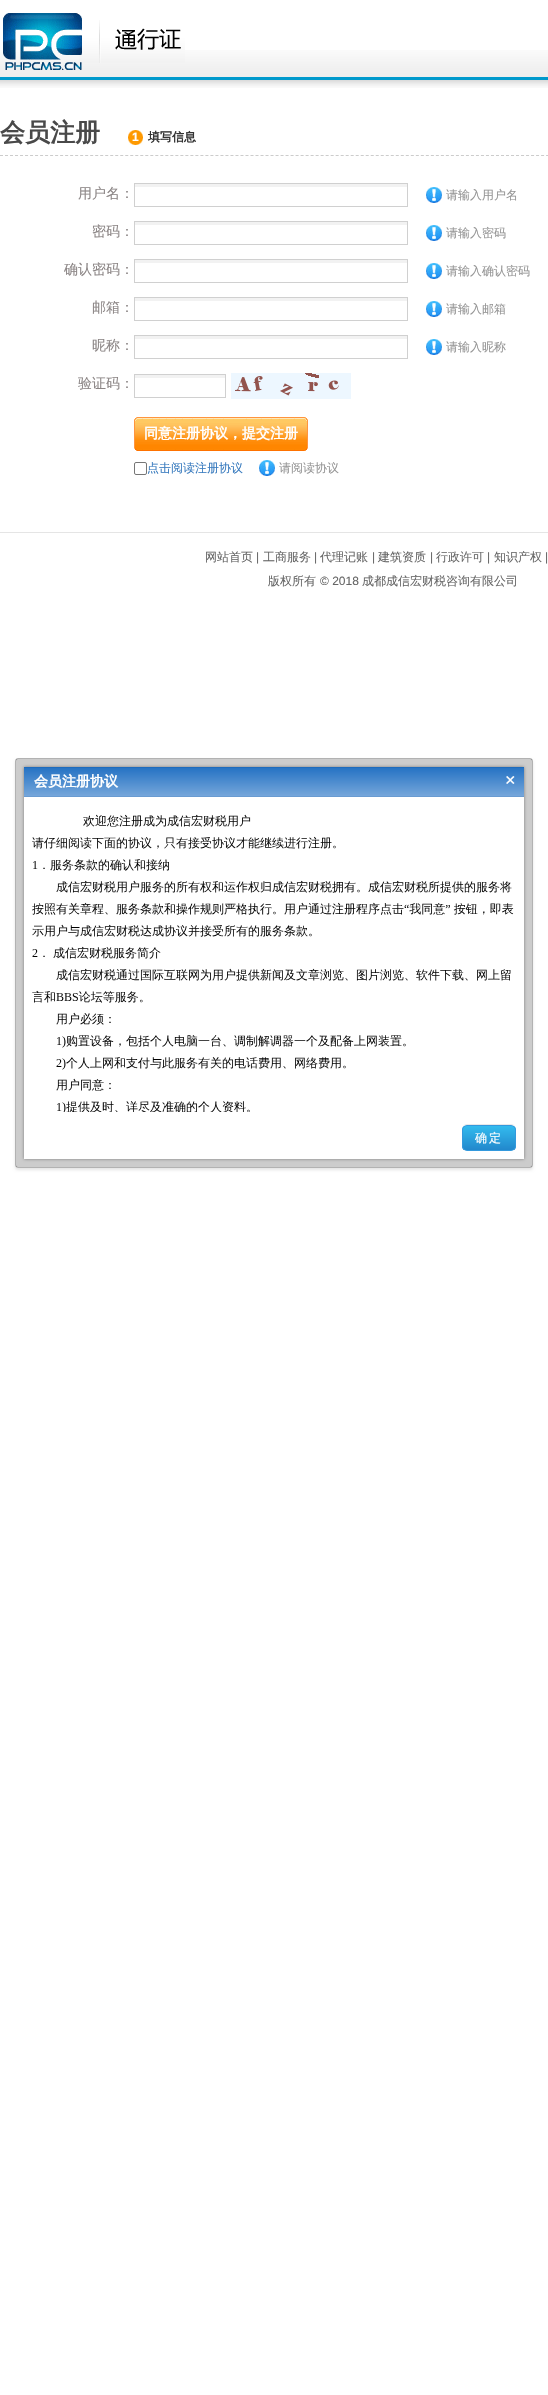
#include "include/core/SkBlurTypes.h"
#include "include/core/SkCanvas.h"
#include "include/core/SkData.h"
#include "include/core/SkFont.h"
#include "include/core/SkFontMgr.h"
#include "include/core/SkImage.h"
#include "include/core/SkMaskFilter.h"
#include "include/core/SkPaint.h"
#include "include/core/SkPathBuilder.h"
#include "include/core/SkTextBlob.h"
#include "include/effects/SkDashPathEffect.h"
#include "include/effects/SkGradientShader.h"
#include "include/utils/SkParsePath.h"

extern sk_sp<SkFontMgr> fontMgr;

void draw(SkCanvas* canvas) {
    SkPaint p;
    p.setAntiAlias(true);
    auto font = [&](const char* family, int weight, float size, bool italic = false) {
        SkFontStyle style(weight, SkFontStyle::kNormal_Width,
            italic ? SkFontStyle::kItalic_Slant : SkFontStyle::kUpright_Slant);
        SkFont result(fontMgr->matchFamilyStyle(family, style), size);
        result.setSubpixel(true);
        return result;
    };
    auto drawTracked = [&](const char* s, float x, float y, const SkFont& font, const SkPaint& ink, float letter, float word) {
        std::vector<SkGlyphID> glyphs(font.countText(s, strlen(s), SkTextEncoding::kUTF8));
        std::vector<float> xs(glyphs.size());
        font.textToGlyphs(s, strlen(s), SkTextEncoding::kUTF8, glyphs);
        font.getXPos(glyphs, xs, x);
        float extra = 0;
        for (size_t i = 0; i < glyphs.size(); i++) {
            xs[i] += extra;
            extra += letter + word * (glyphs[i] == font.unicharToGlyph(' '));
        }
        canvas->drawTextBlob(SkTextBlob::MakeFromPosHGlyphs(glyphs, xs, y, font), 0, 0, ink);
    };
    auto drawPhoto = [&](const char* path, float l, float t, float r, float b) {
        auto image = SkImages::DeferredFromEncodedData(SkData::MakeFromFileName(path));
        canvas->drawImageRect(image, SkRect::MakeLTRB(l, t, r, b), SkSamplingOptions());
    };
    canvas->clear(0xFFFFFFFF);
    drawPhoto("media/1.png", 0, 50, 548, 88);
    drawPhoto("media/2.png", 79, 20, 185, 63);
    drawPhoto("media/3.png", 3, 13, 82, 70);
    p.setStyle(SkPaint::kStroke_Style);
    p.setStrokeWidth(1);
    p.setColor(0xFFCCCCCC);
    p.setPathEffect(SkDashPathEffect::Make({{3, 2.01f}}, 0));
    canvas->drawPath(SkPathBuilder().moveTo(0, 155.5f).lineTo(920, 155.5f).detach(), p);
    p.setPathEffect(nullptr);
    auto font1 = font("WenQuanYi Zen Hei", 700, 25);
    p.setStyle(SkPaint::kFill_Style);
    p.setColor(0xFF494949);
    canvas->drawString("会员注册", 0, 141, font1, p);
    drawPhoto("media/4.png", 128, 130, 143, 145);
    auto font2 = font("Liberation Sans", 700, 12);
    p.setColor(0xFFFFFFFF);
    canvas->drawString("1", 132, 141, font2, p);
    auto font3 = font("WenQuanYi Zen Hei", 700, 12);
    p.setColor(0xFF333333);
    canvas->drawString("填写信息", 148, 141, font3, p);
    auto font4 = font("WenQuanYi Zen Hei", 500, 14);
    p.setColor(0xFF8C8686);
    canvas->drawString("用户名：", 78, 198, font4, p);
    p.setColor(0xFFF2F2F2);
    canvas->drawRect(SkRect::MakeLTRB(134, 184, 408, 187), p);
    p.setStyle(SkPaint::kStroke_Style);
    p.setColor(0xFFD0D0D0);
    canvas->drawRect(SkRect::MakeLTRB(134.5f, 183.5f, 407.5f, 206.5f), p);
    drawPhoto("media/5.png", 426, 187, 442, 203);
    auto font5 = font("WenQuanYi Zen Hei", 500, 12);
    p.setStyle(SkPaint::kFill_Style);
    p.setColor(0xFF959595);
    canvas->drawString("请输入用户名", 446, 199, font5, p);
    p.setColor(0xFF8C8686);
    canvas->drawString("密码：", 92, 236, font4, p);
    p.setColor(0xFFF2F2F2);
    canvas->drawRect(SkRect::MakeLTRB(134, 222, 408, 225), p);
    p.setStyle(SkPaint::kStroke_Style);
    p.setColor(0xFFD0D0D0);
    canvas->drawRect(SkRect::MakeLTRB(134.5f, 221.5f, 407.5f, 244.5f), p);
    drawPhoto("media/5.png", 426, 225, 442, 241);
    p.setStyle(SkPaint::kFill_Style);
    p.setColor(0xFF959595);
    canvas->drawString("请输入密码", 446, 237, font5, p);
    p.setColor(0xFF8C8686);
    canvas->drawString("确认密码：", 64, 274, font4, p);
    p.setColor(0xFFF2F2F2);
    canvas->drawRect(SkRect::MakeLTRB(134, 260, 408, 263), p);
    p.setStyle(SkPaint::kStroke_Style);
    p.setColor(0xFFD0D0D0);
    canvas->drawRect(SkRect::MakeLTRB(134.5f, 259.5f, 407.5f, 282.5f), p);
    drawPhoto("media/5.png", 426, 263, 442, 279);
    p.setStyle(SkPaint::kFill_Style);
    p.setColor(0xFF959595);
    canvas->drawString("请输入确认密码", 446, 275, font5, p);
    p.setColor(0xFF8C8686);
    canvas->drawString("邮箱：", 92, 312, font4, p);
    p.setColor(0xFFF2F2F2);
    canvas->drawRect(SkRect::MakeLTRB(134, 298, 408, 301), p);
    p.setStyle(SkPaint::kStroke_Style);
    p.setColor(0xFFD0D0D0);
    canvas->drawRect(SkRect::MakeLTRB(134.5f, 297.5f, 407.5f, 320.5f), p);
    drawPhoto("media/5.png", 426, 301, 442, 317);
    p.setStyle(SkPaint::kFill_Style);
    p.setColor(0xFF959595);
    canvas->drawString("请输入邮箱", 446, 313, font5, p);
    p.setColor(0xFF8C8686);
    canvas->drawString("昵称：", 92, 350, font4, p);
    p.setColor(0xFFF2F2F2);
    canvas->drawRect(SkRect::MakeLTRB(134, 336, 408, 339), p);
    p.setStyle(SkPaint::kStroke_Style);
    p.setColor(0xFFD0D0D0);
    canvas->drawRect(SkRect::MakeLTRB(134.5f, 335.5f, 407.5f, 358.5f), p);
    drawPhoto("media/5.png", 426, 339, 442, 355);
    p.setStyle(SkPaint::kFill_Style);
    p.setColor(0xFF959595);
    canvas->drawString("请输入昵称", 446, 351, font5, p);
    p.setColor(0xFF8C8686);
    canvas->drawString("验证码：", 78, 388, font4, p);
    p.setColor(0xFFF2F2F2);
    canvas->drawRect(SkRect::MakeLTRB(134, 375, 226, 378), p);
    p.setStyle(SkPaint::kStroke_Style);
    p.setColor(0xFFD0D0D0);
    canvas->drawRect(SkRect::MakeLTRB(134.5f, 374.5f, 225.5f, 397.5f), p);
    drawPhoto("media/6.png", 231, 373, 351, 399);
    drawPhoto("media/7.png", 134, 417, 137, 451);
    drawPhoto("media/8.png", 137, 417, 308, 451);
    auto font6 = font("WenQuanYi Zen Hei", 700, 14);
    p.setStyle(SkPaint::kFill_Style);
    p.setColor(0xFFFFFFFF);
    canvas->drawString("同意注册协议，提交注册", 144, 438, font6, p);
    p.setStyle(SkPaint::kStroke_Style);
    p.setColor(0xFF767676);
    canvas->drawRoundRect(SkRect::MakeLTRB(134.5f, 462.5f, 146.5f, 474.5f), 1.5f, 1.5f, p);
    p.setStyle(SkPaint::kFill_Style);
    p.setColor(0xFF377ABE);
    canvas->drawString("点击阅读注册协议", 147, 472, font5, p);
    drawPhoto("media/5.png", 259, 460, 275, 476);
    p.setColor(0xFF959595);
    canvas->drawString("请阅读协议", 279, 472, font5, p);
    p.setColor(0xFFE5E5E5);
    canvas->drawRect(SkRect::MakeLTRB(0, 532, 548, 533), p);
    p.setColor(0xFF666666);
    canvas->drawString("网站首页", 205, 561, font5, p);
    auto font7 = font("Liberation Sans", 400, 12);
    canvas->drawString("|", 256, 561, font7, p);
    canvas->drawString("工商服务", 263, 561, font5, p);
    canvas->drawString("|", 314, 561, font7, p);
    canvas->drawString("代理记账", 320, 561, font5, p);
    canvas->drawString("|", 372, 561, font7, p);
    canvas->drawString("建筑资质", 378, 561, font5, p);
    canvas->drawString("|", 430, 561, font7, p);
    canvas->drawString("行政许可", 436, 561, font5, p);
    canvas->drawString("|", 487, 561, font7, p);
    canvas->drawString("知识产权", 494, 561, font5, p);
    canvas->drawString("|", 545, 561, font7, p);
    canvas->drawString("版权所有", 268, 585, font5, p);
    canvas->drawString("© 2018", 320, 585, font7, p);
    canvas->drawString("成都成信宏财税咨询有限公司", 362, 585, font5, p);
    canvas->save();
    canvas->clipPath(SkPathBuilder(SkPathFillType::kEvenOdd).moveTo(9, 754).lineTo(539, 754).lineTo(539, 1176).lineTo(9, 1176).close().moveTo(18, 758).lineTo(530, 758).cubicTo(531.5f, 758, 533, 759.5f, 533, 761).lineTo(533, 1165).cubicTo(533, 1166.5f, 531.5f, 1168, 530, 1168).lineTo(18, 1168).cubicTo(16.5f, 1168, 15, 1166.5f, 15, 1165).lineTo(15, 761).cubicTo(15, 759.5f, 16.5f, 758, 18, 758).close().detach(), true);
    p.setColor(0x1A000000);
    p.setMaskFilter(SkMaskFilter::MakeBlur(kNormal_SkBlurStyle, 1.5f));
    canvas->drawRoundRect(SkRect::MakeLTRB(15, 760, 533, 1170), 3, 3, p);
    p.setMaskFilter(nullptr);
    canvas->restore();
    p.setStyle(SkPaint::kStroke_Style);
    p.setColor(0x4D000000);
    canvas->drawRoundRect(SkRect::MakeLTRB(15.5f, 758.5f, 532.5f, 1167.5f), 2.5f, 2.5f, p);
    p.setStyle(SkPaint::kFill_Style);
    {
        const struct { float l, t, r, b; SkColor color; } items[] = {
            {16, 759, 24, 767, 0x33000000},
            {24, 759, 524, 767, 0xFFCCCCCC},
            {524, 759, 532, 767, 0x33000000},
            {16, 767, 24, 1159, 0xFFCCCCCC},
        };
        for (auto [l, t, r, b, color] : items) {
            p.setColor(color);
            canvas->drawRect(SkRect::MakeLTRB(l, t, r, b), p);
        }
    }
    canvas->save();
    canvas->clipPath(SkPathBuilder(SkPathFillType::kEvenOdd).moveTo(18, 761).lineTo(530, 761).lineTo(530, 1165).lineTo(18, 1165).close().moveTo(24, 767).lineTo(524, 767).lineTo(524, 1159).lineTo(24, 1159).close().detach(), true);
    p.setColor(0x66000000);
    p.setMaskFilter(SkMaskFilter::MakeBlur(kNormal_SkBlurStyle, 1.5f));
    canvas->drawRect(SkRect::MakeLTRB(24, 767, 524, 1159), p);
    p.setMaskFilter(nullptr);
    canvas->restore();
    {
        const SkColor colors[] = {0xFF2673C4, 0xFF75A6DA};
        const float stops[] = {0, 1};
        const SkPoint ends[] = {{24, 768}, {24, 796}};
        p.setShader(SkGradientShader::MakeLinear(ends, colors, stops, 2, SkTileMode::kClamp));
        p.setAlpha(255);
    }
    canvas->drawRect(SkRect::MakeLTRB(24, 768, 524, 796), p);
    p.setShader(nullptr);
    p.setColor(0xFF1E6BBC);
    canvas->drawRect(SkRect::MakeLTRB(24, 767, 524, 768), p);
    p.setColor(0xFF699BD1);
    canvas->drawRect(SkRect::MakeLTRB(24, 796, 524, 797), p);
    p.setColor(0xFFFFFFFF);
    canvas->drawString("会员注册协议", 34, 786, font6, p);
    auto font8 = font("Liberation Sans", 400, 18);
    canvas->drawString("×", 505, 786, font8, p);
    drawPhoto("media/9.png", 32, 814, 514, 1112);
    p.setColor(0xFFE8E8E8);
    canvas->drawPath(SkPathBuilder().moveTo(467, 1124).cubicTo(464, 1124, 462, 1127, 462, 1130).cubicTo(462, 1127, 464, 1125, 467, 1125).lineTo(511, 1125).cubicTo(514, 1125, 516, 1127, 516, 1130).cubicTo(516, 1127, 514, 1124, 511, 1124).close().detach(), p);
    canvas->save();
    canvas->clipPath(SkPathBuilder().moveTo(467, 1125).lineTo(511, 1125).cubicTo(514, 1125, 516, 1127, 516, 1130).lineTo(516, 1146).cubicTo(516, 1149, 514, 1151, 511, 1151).lineTo(467, 1151).cubicTo(464, 1151, 462, 1149, 462, 1146).lineTo(462, 1130).cubicTo(462, 1127, 464, 1125, 467, 1125).close().detach(), true);
    {
        const SkColor colors[] = {0xFF33BBEE, 0xFF2288CC};
        const float stops[] = {0, 1};
        const SkPoint ends[] = {{463, 1126}, {463, 1150}};
        p.setShader(SkGradientShader::MakeLinear(ends, colors, stops, 2, SkTileMode::kClamp));
        p.setAlpha(255);
    }
    canvas->drawRect(SkRect::MakeLTRB(462, 1126, 516, 1150), p);
    canvas->restore();
    p.setStyle(SkPaint::kStroke_Style);
    p.setShader(nullptr);
    p.setColor(0xFF3399DD);
    canvas->drawRoundRect(SkRect::MakeLTRB(462.5f, 1125.5f, 515.5f, 1150.5f), 4.5f, 4.5f, p);
    p.setStyle(SkPaint::kFill_Style);
    p.setColor(0xFFFFFFFF);
    drawTracked("确定", 475, 1142, font5, p, 2, 0);
    {
        const struct { float l, t, r, b; SkColor color; } items[] = {
            {524, 767, 532, 1159, 0x33000000},
            {16, 1159, 24, 1167, 0x33000000},
            {24, 1159, 524, 1167, 0x33000000},
            {524, 1159, 532, 1167, 0x33000000},
        };
        for (auto [l, t, r, b, color] : items) {
            p.setColor(color);
            canvas->drawRect(SkRect::MakeLTRB(l, t, r, b), p);
        }
    }
}
